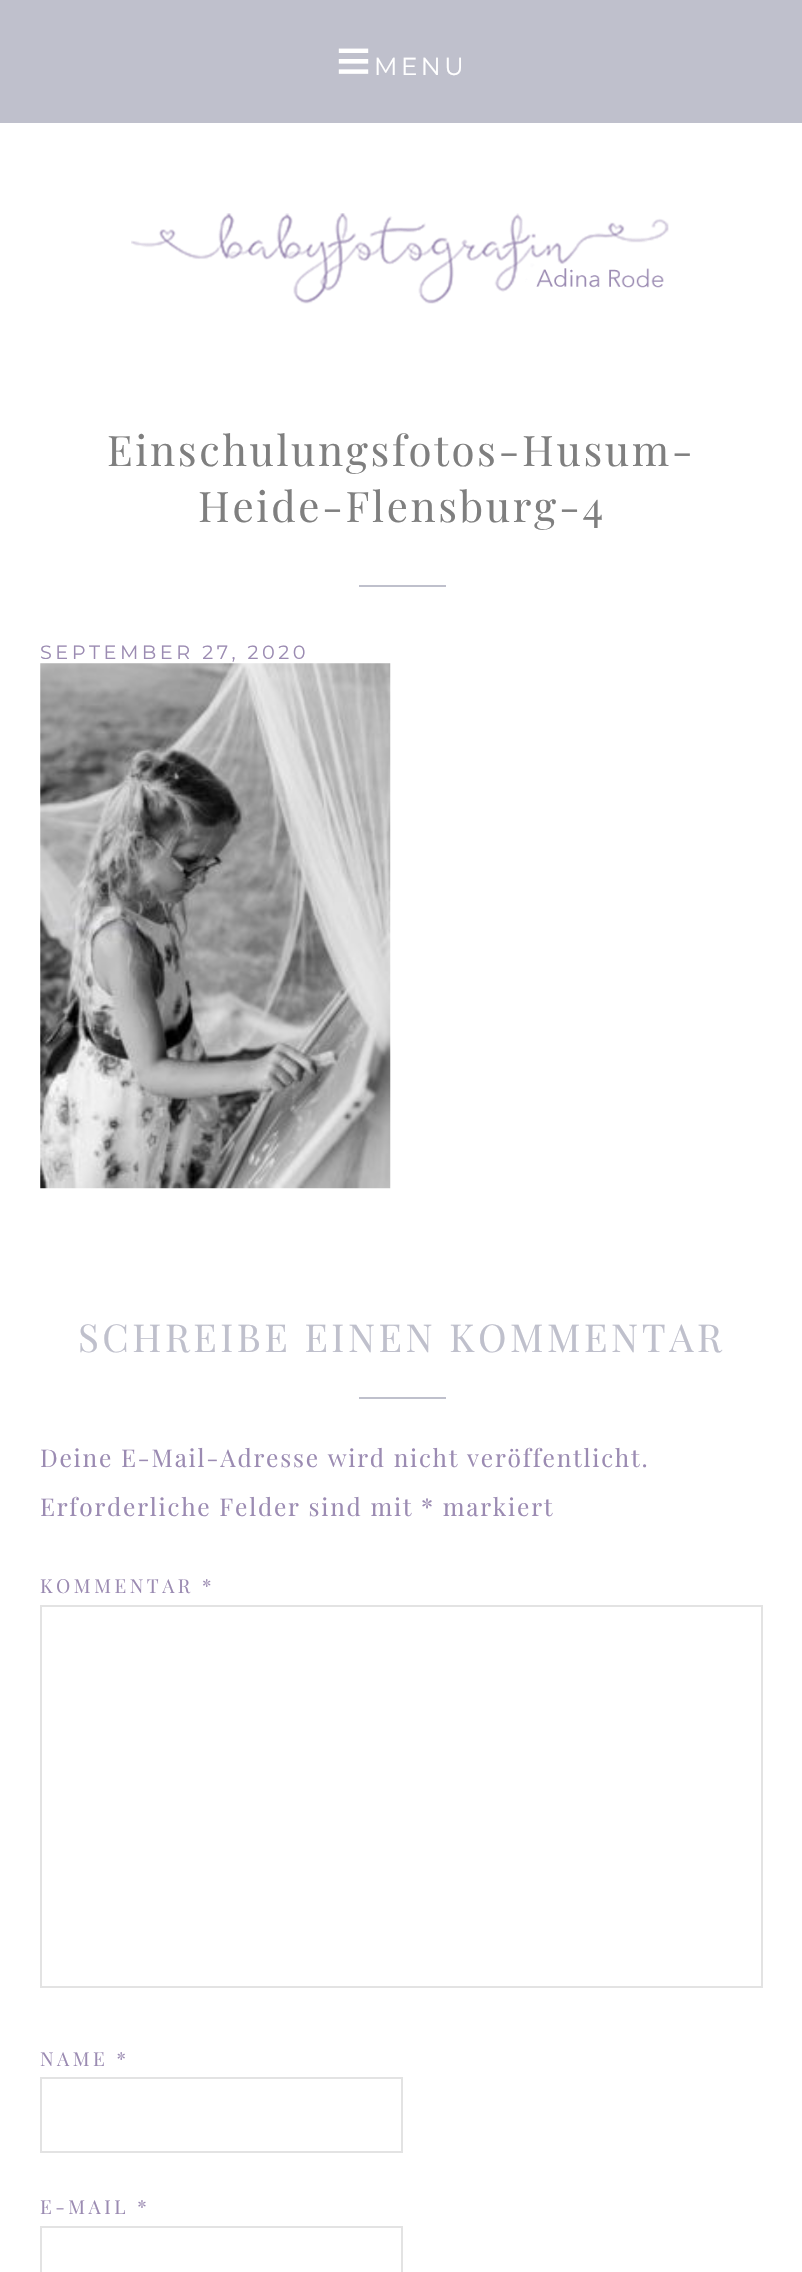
#include "include/core/SkBlurTypes.h"
#include "include/core/SkCanvas.h"
#include "include/core/SkData.h"
#include "include/core/SkFont.h"
#include "include/core/SkFontMgr.h"
#include "include/core/SkImage.h"
#include "include/core/SkMaskFilter.h"
#include "include/core/SkPaint.h"
#include "include/core/SkPathBuilder.h"
#include "include/core/SkTextBlob.h"
#include "include/effects/SkDashPathEffect.h"
#include "include/effects/SkGradientShader.h"
#include "include/utils/SkParsePath.h"

extern sk_sp<SkFontMgr> fontMgr;

void draw(SkCanvas* canvas) {
    SkPaint p;
    p.setAntiAlias(true);
    auto font = [&](const char* family, int weight, float size, bool italic = false) {
        SkFontStyle style(weight, SkFontStyle::kNormal_Width,
            italic ? SkFontStyle::kItalic_Slant : SkFontStyle::kUpright_Slant);
        SkFont result(fontMgr->matchFamilyStyle(family, style), size);
        result.setSubpixel(true);
        return result;
    };
    auto drawTracked = [&](const char* s, float x, float y, const SkFont& font, const SkPaint& ink, float letter, float word) {
        std::vector<SkGlyphID> glyphs(font.countText(s, strlen(s), SkTextEncoding::kUTF8));
        std::vector<float> xs(glyphs.size());
        font.textToGlyphs(s, strlen(s), SkTextEncoding::kUTF8, glyphs);
        font.getXPos(glyphs, xs, x);
        float extra = 0;
        for (size_t i = 0; i < glyphs.size(); i++) {
            xs[i] += extra;
            extra += letter + word * (glyphs[i] == font.unicharToGlyph(' '));
        }
        canvas->drawTextBlob(SkTextBlob::MakeFromPosHGlyphs(glyphs, xs, y, font), 0, 0, ink);
    };
    auto drawPhoto = [&](const char* path, float l, float t, float r, float b) {
        auto image = SkImages::DeferredFromEncodedData(SkData::MakeFromFileName(path));
        canvas->drawImageRect(image, SkRect::MakeLTRB(l, t, r, b), SkSamplingOptions());
    };
    canvas->clear(0xFFFFFFFF);
    p.setColor(0xFFBFC0CC);
    canvas->drawRect(SkRect::MakeLTRB(0, 0, 802, 123), p);
    auto font1 = font("Liberation Sans", 400, 60);
    p.setColor(0xFFFFFFFF);
    drawTracked("≡", 336, 81, font1, p, 3.5f, 0);
    auto font2 = font("Montserrat", 400, 24.5f);
    drawTracked("MENU", 374, 75, font2, p, 3.5f, 0);
    drawPhoto("media/1.png", 131, 213, 669, 304);
    auto font3 = font("Playfair Display", 400, 42);
    p.setColor(0xFF7F7F7F);
    drawTracked("Einschulungsfotos-Husum-", 107, 466, font3, p, 2.6f, 0);
    drawTracked("Heide-Flensburg-4", 198, 522, font3, p, 2.6f, 0);
    p.setColor(0xFFBFC0CC);
    canvas->drawRect(SkRect::MakeLTRB(359, 585, 446, 587), p);
    auto font4 = font("Montserrat", 400, 19.25f);
    p.setColor(0xFF9B8BB2);
    drawTracked("SEPTEMBER 27, 2020", 40, 659, font4, p, 3.5f, 0);
    drawPhoto("media/2.png", 40, 663, 391, 1189);
    auto font5 = font("Playfair Display", 400, 38.5f);
    p.setColor(0xFFBFC0CC);
    drawTracked("SCHREIBE EINEN KOMMENTAR", 78, 1352, font5, p, 3.5f, 0);
    canvas->drawRect(SkRect::MakeLTRB(359, 1397, 446, 1399), p);
    auto font6 = font("Playfair Display", 400, 24.5f);
    p.setColor(0xFF9B8BB2);
    drawTracked("Deine E-Mail-Adresse wird nicht veröffentlicht.", 40, 1467, font6, p, 1.75f, 0);
    drawTracked("Erforderliche Felder sind mit * markiert", 40, 1516, font6, p, 1.75f, 0);
    auto font7 = font("Playfair Display", 400, 19.25f);
    drawTracked("KOMMENTAR *", 40, 1593, font7, p, 3.5f, 0);
    p.setStyle(SkPaint::kStroke_Style);
    p.setStrokeWidth(2);
    p.setColor(0xFFE3E3E3);
    canvas->drawRect(SkRect::MakeLTRB(41, 1606, 762, 1987), p);
    p.setStyle(SkPaint::kFill_Style);
    p.setColor(0xFF9B8BB2);
    drawTracked("NAME *", 40, 2066, font7, p, 3.5f, 0);
    p.setStyle(SkPaint::kStroke_Style);
    p.setColor(0xFFE3E3E3);
    canvas->drawRect(SkRect::MakeLTRB(41, 2078, 402, 2152), p);
    p.setStyle(SkPaint::kFill_Style);
    p.setColor(0xFF9B8BB2);
    drawTracked("E-MAIL *", 40, 2214, font7, p, 3.5f, 0);
    p.setStyle(SkPaint::kStroke_Style);
    p.setColor(0xFFE3E3E3);
    canvas->drawRect(SkRect::MakeLTRB(41, 2227, 402, 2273), p);
}
